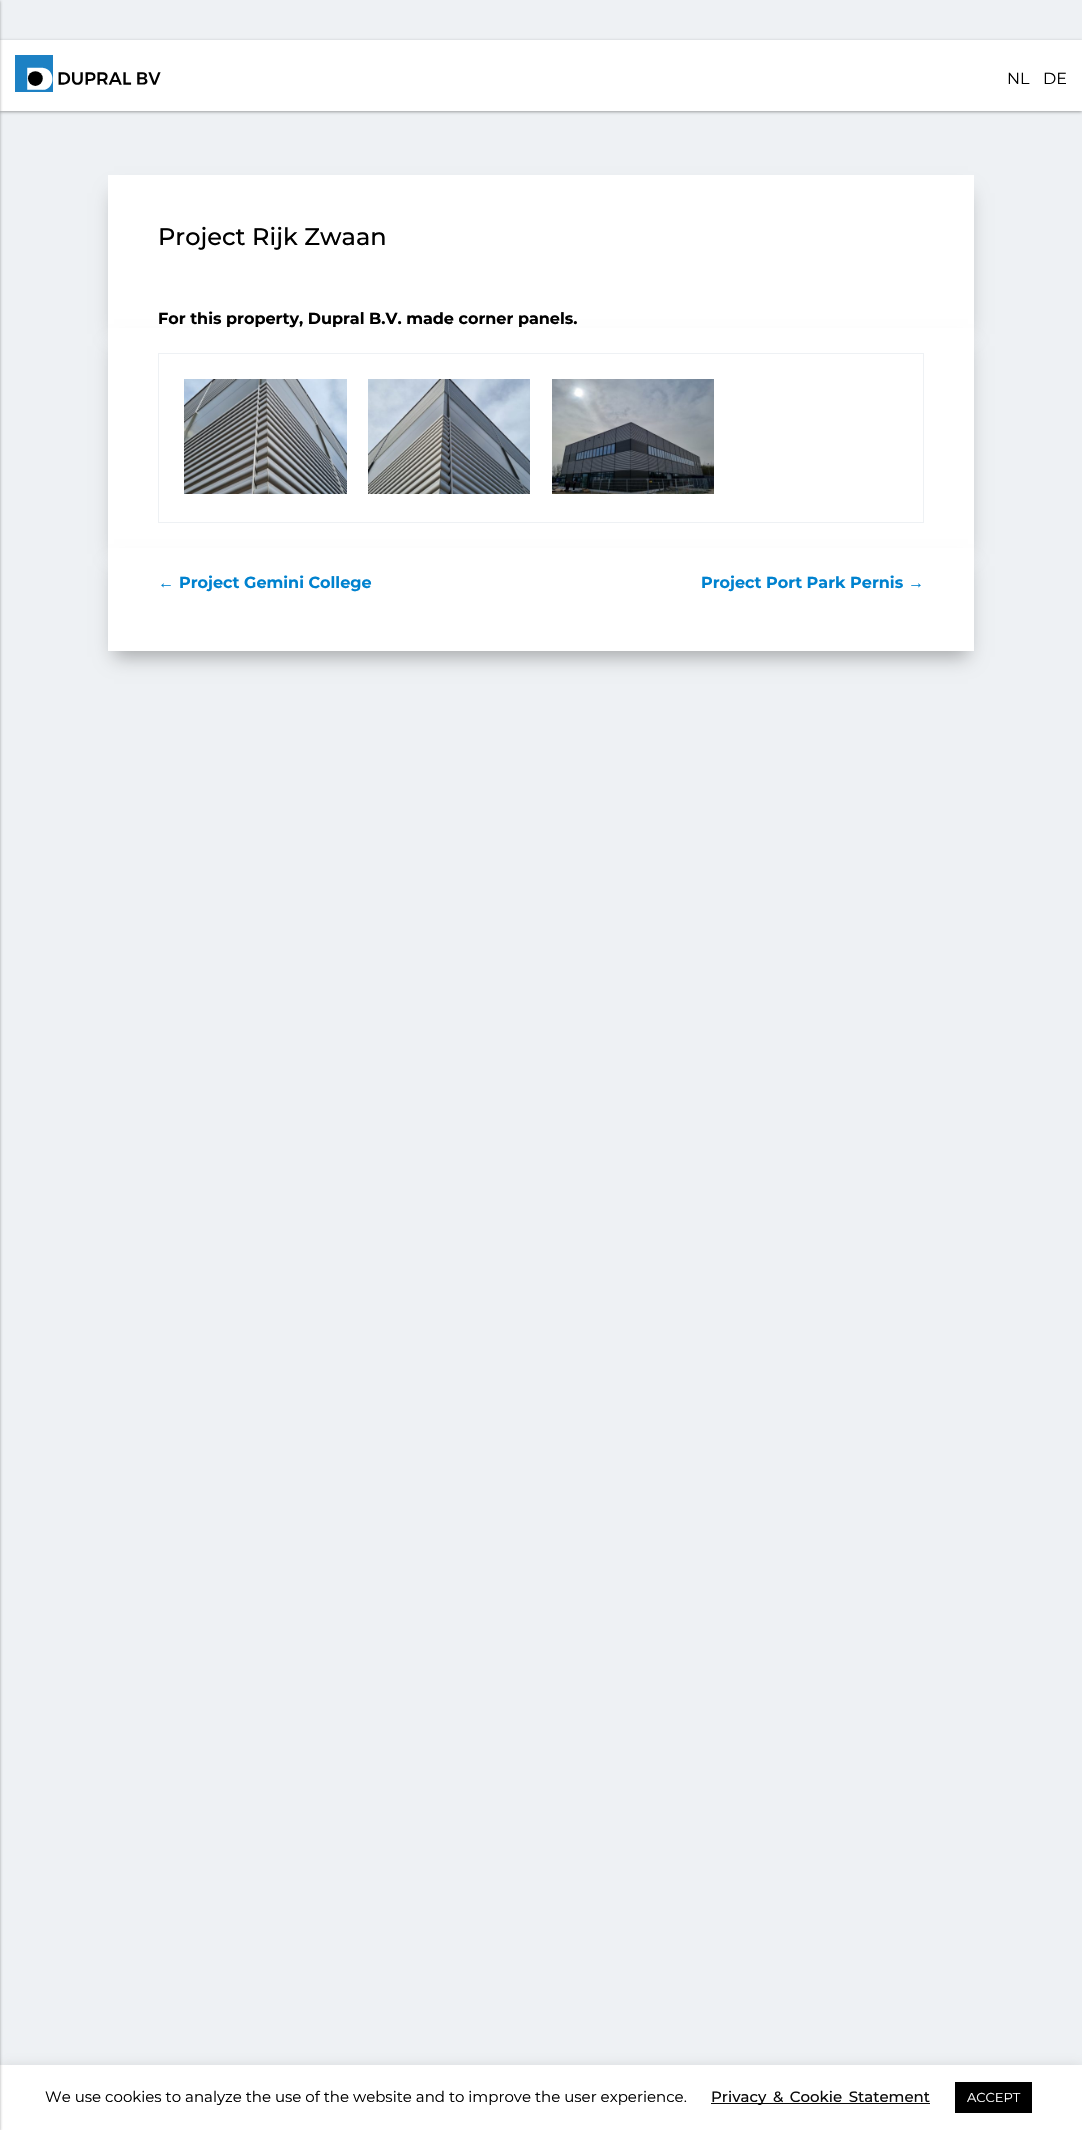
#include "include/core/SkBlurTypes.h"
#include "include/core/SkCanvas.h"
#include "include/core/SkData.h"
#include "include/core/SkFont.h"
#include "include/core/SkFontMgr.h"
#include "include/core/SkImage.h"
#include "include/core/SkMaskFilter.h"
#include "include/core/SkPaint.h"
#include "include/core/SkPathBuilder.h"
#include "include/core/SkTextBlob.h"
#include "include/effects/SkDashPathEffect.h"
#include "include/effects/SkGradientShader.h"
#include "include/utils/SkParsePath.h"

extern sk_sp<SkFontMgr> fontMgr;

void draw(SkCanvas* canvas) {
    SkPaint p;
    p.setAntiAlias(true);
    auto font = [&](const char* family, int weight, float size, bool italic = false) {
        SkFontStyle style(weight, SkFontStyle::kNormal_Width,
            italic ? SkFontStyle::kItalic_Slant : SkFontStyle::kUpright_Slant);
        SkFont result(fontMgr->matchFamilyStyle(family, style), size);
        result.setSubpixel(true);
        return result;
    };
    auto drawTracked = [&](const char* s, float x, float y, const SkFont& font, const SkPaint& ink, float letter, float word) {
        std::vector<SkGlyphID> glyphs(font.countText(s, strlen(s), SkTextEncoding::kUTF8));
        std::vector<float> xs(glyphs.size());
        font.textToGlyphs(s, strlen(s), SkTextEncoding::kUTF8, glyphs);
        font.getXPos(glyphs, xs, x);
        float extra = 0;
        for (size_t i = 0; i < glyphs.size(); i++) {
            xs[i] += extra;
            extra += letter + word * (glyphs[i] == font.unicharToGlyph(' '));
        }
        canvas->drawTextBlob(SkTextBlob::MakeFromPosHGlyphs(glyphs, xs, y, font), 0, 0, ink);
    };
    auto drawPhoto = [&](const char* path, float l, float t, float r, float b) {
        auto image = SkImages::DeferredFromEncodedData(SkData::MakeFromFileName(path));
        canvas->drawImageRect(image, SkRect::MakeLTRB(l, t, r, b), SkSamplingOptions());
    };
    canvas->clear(0xFFEEF1F4);
    p.setColor(0x59000000);
    p.setMaskFilter(SkMaskFilter::MakeBlur(kNormal_SkBlurStyle, 1.5f));
    canvas->drawRect(SkRect::MakeLTRB(0, 41, 1082, 112), p);
    p.setMaskFilter(nullptr);
    p.setColor(0xFFFFFFFF);
    canvas->drawRect(SkRect::MakeLTRB(0, 40, 1082, 111), p);
    p.setColor(0x4DACABAB);
    p.setMaskFilter(SkMaskFilter::MakeBlur(kNormal_SkBlurStyle, 5));
    canvas->drawRect(SkRect::MakeLTRB(0, 2064, 1082, 2129), p);
    p.setMaskFilter(nullptr);
    p.setColor(0xFFFFFFFF);
    canvas->drawRect(SkRect::MakeLTRB(0, 2065, 1082, 2130), p);
    p.setColor(0x59000000);
    p.setMaskFilter(SkMaskFilter::MakeBlur(kNormal_SkBlurStyle, 1.5f));
    canvas->drawRect(SkRect::MakeLTRB(-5, 1, 0, 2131), p);
    p.setMaskFilter(nullptr);
    drawPhoto("media/1.png", 15, 55, 161, 92);
    auto font1 = font("Montserrat", 400, 16);
    p.setColor(0xFF000000);
    canvas->drawString("NL", 1007, 84, font1, p);
    canvas->drawString("DE", 1043, 84, font1, p);
    p.setColor(0x4D000000);
    p.setMaskFilter(SkMaskFilter::MakeBlur(kNormal_SkBlurStyle, 9));
    canvas->drawRect(SkRect::MakeLTRB(114, 193, 968, 334), p);
    p.setMaskFilter(nullptr);
    p.setColor(0xFFFFFFFF);
    canvas->drawRect(SkRect::MakeLTRB(108, 175, 974, 328), p);
    auto font2 = font("Montserrat", 500, 24);
    p.setColor(0xFF000000);
    canvas->drawString("Project Rijk Zwaan", 158, 245, font2, p);
    p.setColor(0x4D000000);
    p.setMaskFilter(SkMaskFilter::MakeBlur(kNormal_SkBlurStyle, 9));
    canvas->drawRect(SkRect::MakeLTRB(114, 346, 968, 554), p);
    p.setMaskFilter(nullptr);
    auto font3 = font("Montserrat", 700, 16);
    p.setColor(0xFF000000);
    canvas->drawString("For this property, Dupral B.V. made corner panels.", 158, 324, font3, p);
    p.setColor(0xFFFFFFFF);
    canvas->drawRect(SkRect::MakeLTRB(108, 328, 974, 548), p);
    p.setStyle(SkPaint::kStroke_Style);
    p.setStrokeWidth(1);
    p.setColor(0xFFEEF1F4);
    canvas->drawRect(SkRect::MakeLTRB(158.5f, 353.5f, 923.5f, 522.5f), p);
    drawPhoto("media/2.png", 184, 379, 347, 494);
    drawPhoto("media/3.png", 368, 379, 530, 494);
    drawPhoto("media/4.png", 552, 379, 714, 494);
    p.setStyle(SkPaint::kFill_Style);
    p.setColor(0x4D000000);
    p.setMaskFilter(SkMaskFilter::MakeBlur(kNormal_SkBlurStyle, 9));
    canvas->drawRect(SkRect::MakeLTRB(114, 566, 968, 657), p);
    p.setMaskFilter(nullptr);
    p.setColor(0xFFFFFFFF);
    canvas->drawRect(SkRect::MakeLTRB(108, 548, 974, 651), p);
    auto font4 = font("Liberation Sans", 700, 16);
    p.setColor(0xFF0082CF);
    canvas->drawString("←", 158, 588, font4, p);
    canvas->drawString("Project Gemini College", 179, 588, font3, p);
    canvas->drawString("Project Port Park Pernis", 701, 588, font3, p);
    canvas->drawString("→", 908, 588, font4, p);
    auto font5 = font("Montserrat", 400, 15);
    p.setColor(0xFF000000);
    canvas->drawString("We use cookies to analyze the use of the website and to improve the user experience.", 45, 2102, font5, p);
    p.setColor(0xFF0A0A0A);
    canvas->drawRect(SkRect::MakeLTRB(711, 2103, 930, 2104), p);
    auto font6 = font("Montserrat", 500, 15);
    drawTracked("Privacy & Cookie Statement", 711, 2102, font6, p, 0, 2.5f);
    p.setColor(0xFF000000);
    canvas->drawRect(SkRect::MakeLTRB(955, 2082, 1032, 2113), p);
    auto font7 = font("Montserrat", 400, 13);
    p.setColor(0xFFFFFFFF);
    canvas->drawString("ACCEPT", 967, 2102, font7, p);
}
